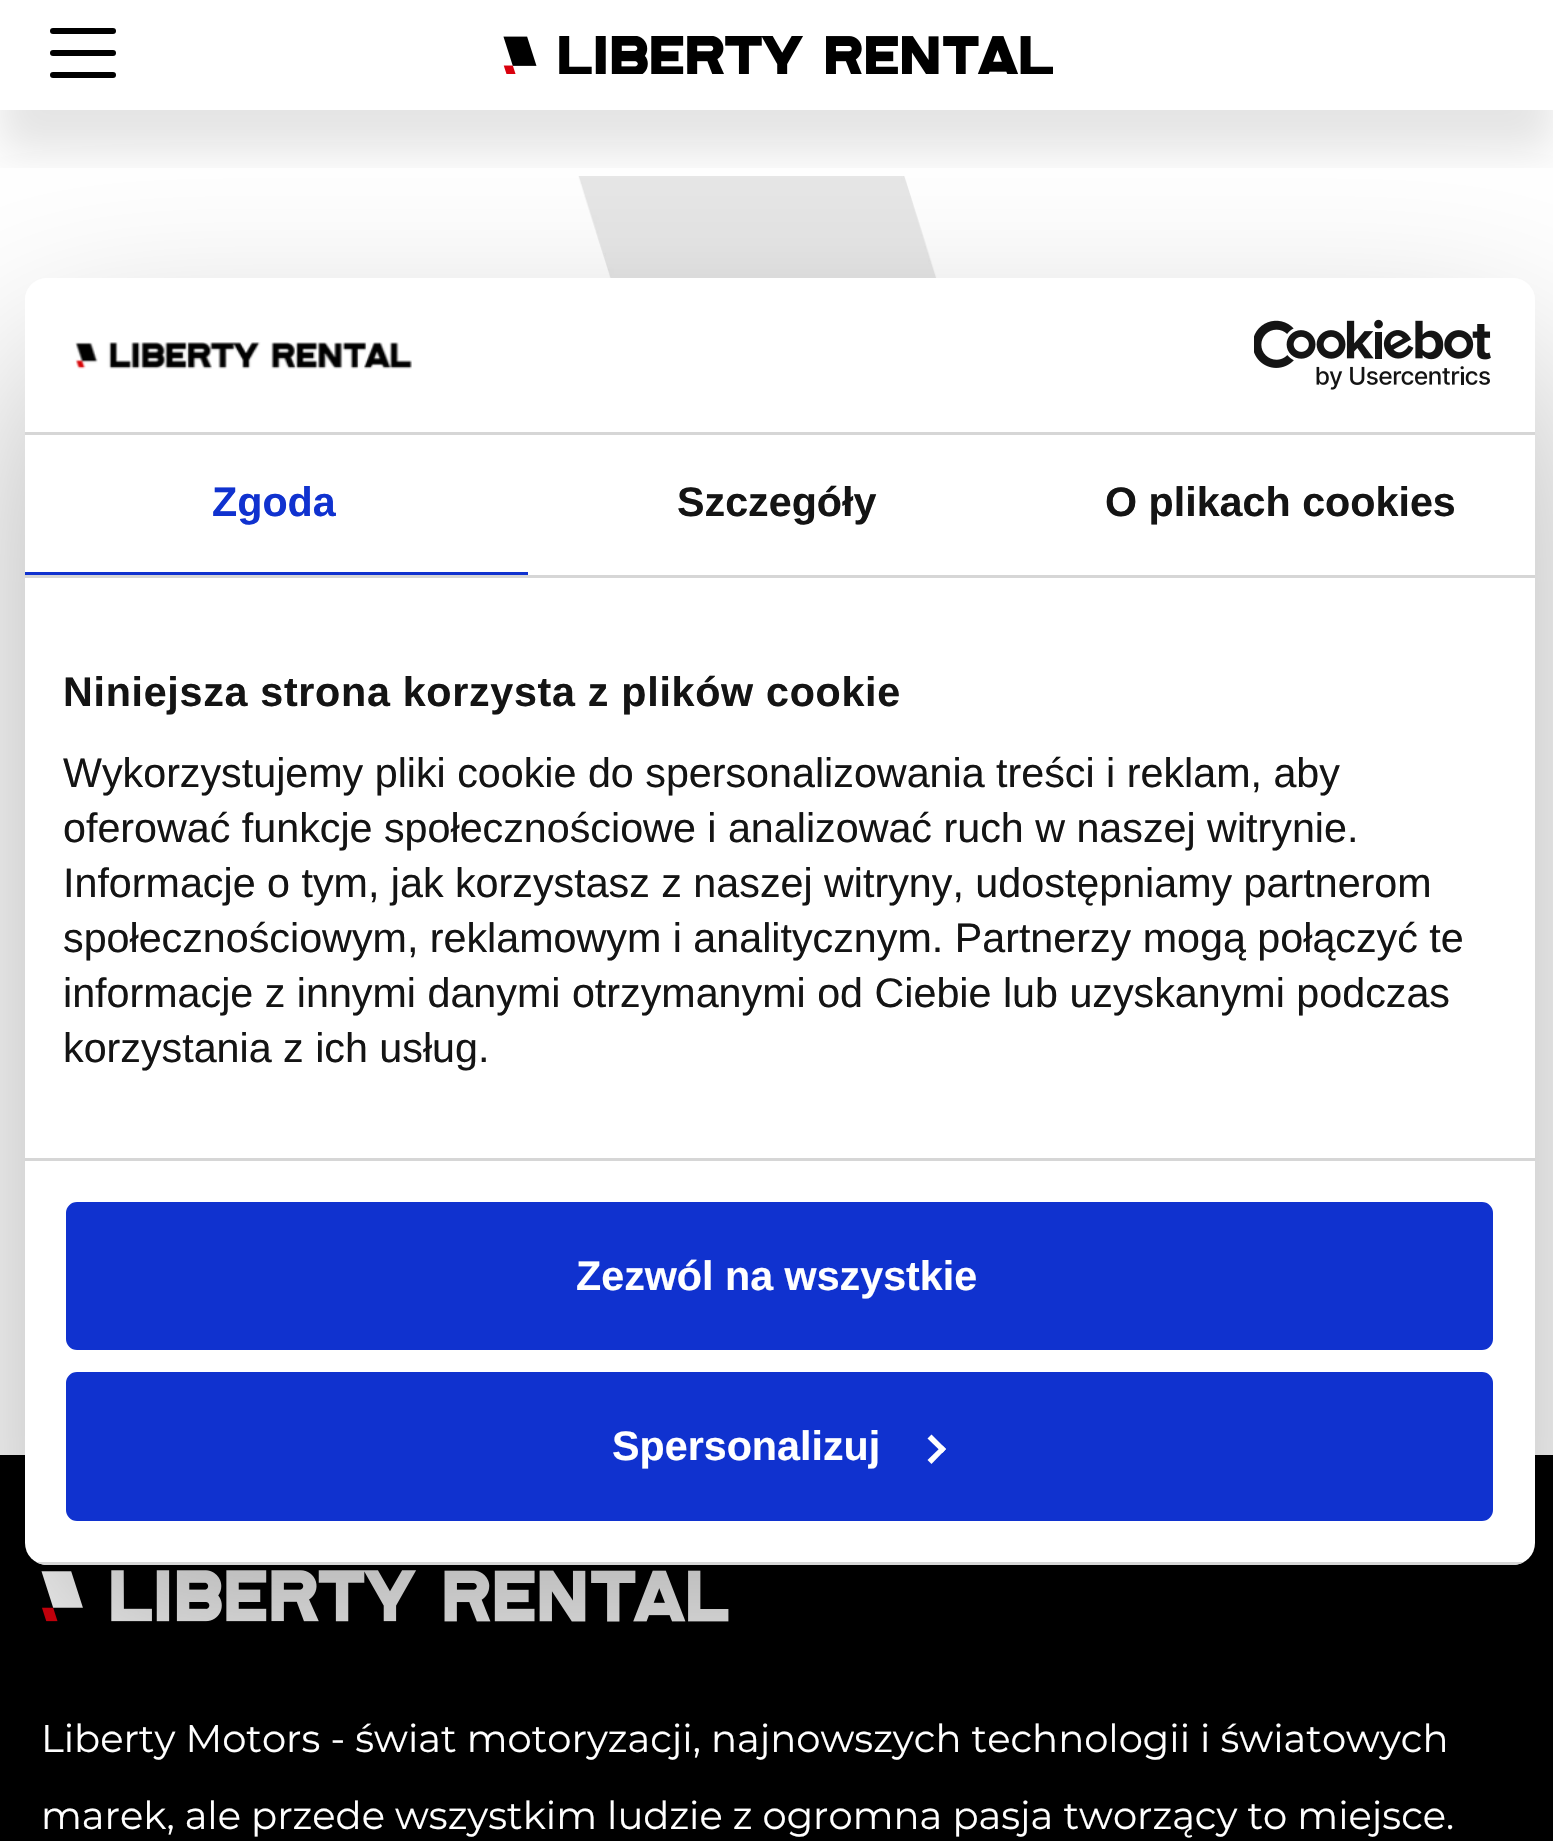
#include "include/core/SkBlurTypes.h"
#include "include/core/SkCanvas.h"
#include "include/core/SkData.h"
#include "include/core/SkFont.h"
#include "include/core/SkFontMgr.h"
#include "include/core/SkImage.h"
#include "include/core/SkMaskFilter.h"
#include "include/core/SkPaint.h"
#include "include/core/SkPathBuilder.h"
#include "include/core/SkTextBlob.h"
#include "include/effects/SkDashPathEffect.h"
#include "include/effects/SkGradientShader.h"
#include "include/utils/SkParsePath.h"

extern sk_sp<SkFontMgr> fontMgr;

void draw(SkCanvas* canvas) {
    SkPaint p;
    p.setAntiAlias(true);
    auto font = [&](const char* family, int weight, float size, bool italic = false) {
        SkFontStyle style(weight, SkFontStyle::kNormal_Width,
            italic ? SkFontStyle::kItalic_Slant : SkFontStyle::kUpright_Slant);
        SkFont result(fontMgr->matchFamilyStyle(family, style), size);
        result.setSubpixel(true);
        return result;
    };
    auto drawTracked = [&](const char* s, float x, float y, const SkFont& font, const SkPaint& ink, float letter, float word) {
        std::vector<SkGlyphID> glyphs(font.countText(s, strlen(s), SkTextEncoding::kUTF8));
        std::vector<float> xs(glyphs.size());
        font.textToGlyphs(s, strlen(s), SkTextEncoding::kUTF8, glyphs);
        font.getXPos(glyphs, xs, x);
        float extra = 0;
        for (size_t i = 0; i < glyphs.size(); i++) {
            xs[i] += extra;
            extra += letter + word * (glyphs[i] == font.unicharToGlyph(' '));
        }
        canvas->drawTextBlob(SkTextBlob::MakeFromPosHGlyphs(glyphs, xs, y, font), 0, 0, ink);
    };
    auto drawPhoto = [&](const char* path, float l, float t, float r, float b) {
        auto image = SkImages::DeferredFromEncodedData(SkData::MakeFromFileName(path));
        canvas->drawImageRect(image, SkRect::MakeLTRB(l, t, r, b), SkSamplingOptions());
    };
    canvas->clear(0xFFFFFFFF);
    drawPhoto("media/4.png", 578, 176, 937, 278);
    p.setColor(0xFF000000);
    canvas->drawRect(SkRect::MakeLTRB(0, 1455, 1553, 1841), p);
    drawPhoto("media/5.png", 41, 1570, 729, 1622);
    canvas->save();
    canvas->clipPath(SkPathBuilder(SkPathFillType::kEvenOdd).moveTo(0, 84).lineTo(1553, 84).lineTo(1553, 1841).lineTo(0, 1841).close().moveTo(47, 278).lineTo(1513, 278).cubicTo(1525, 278, 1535, 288, 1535, 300).lineTo(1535, 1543).cubicTo(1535, 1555, 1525, 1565, 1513, 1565).lineTo(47, 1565).cubicTo(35, 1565, 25, 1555, 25, 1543).lineTo(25, 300).cubicTo(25, 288, 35, 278, 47, 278).close().detach(), true);
    p.setColor(0x4D000000);
    p.setMaskFilter(SkMaskFilter::MakeBlur(kNormal_SkBlurStyle, 93.5f));
    canvas->drawRoundRect(SkRect::MakeLTRB(25, 366, 1535, 1653), 22, 22, p);
    p.setMaskFilter(nullptr);
    canvas->restore();
    p.setColor(0xFFFFFFFF);
    canvas->drawRoundRect(SkRect::MakeLTRB(25, 278, 1535, 1565), 22, 22, p);
    p.setColor(0xFFD6D6D6);
    canvas->drawRect(SkRect::MakeLTRB(25, 432, 1535, 435), p);
    drawPhoto("media/1.png", 75, 342, 412, 369);
    drawPhoto("media/2.png", 1254, 319, 1491, 390);
    canvas->drawRect(SkRect::MakeLTRB(25, 575, 1535, 578), p);
    p.setColor(0xFF1032CF);
    canvas->drawRect(SkRect::MakeLTRB(25, 572, 528, 575), p);
    auto font1 = font("Liberation Sans", 700, 41.25f);
    canvas->drawString("Zgoda", 212, 516, font1, p);
    p.setColor(0xFF141414);
    canvas->drawString("Szczegóły", 677, 516, font1, p);
    canvas->drawString("O plikach cookies", 1105, 516, font1, p);
    p.setColor(0xFFD6D6D6);
    canvas->drawRect(SkRect::MakeLTRB(25, 1158, 1535, 1161), p);
    p.setColor(0xFF141414);
    drawTracked("Niniejsza strona korzysta z plików cookie", 63, 706, font1, p, 0.7f, 0);
    auto font2 = font("Liberation Sans", 400, 41.25f);
    {
        const struct { const char* s; float x, y; } items[] = {
            {"Wykorzystujemy pliki cookie do spersonalizowania treści i reklam, aby", 63, 787},
            {"oferować funkcje społecznościowe i analizować ruch w naszej witrynie.", 63, 842},
            {"Informacje o tym, jak korzystasz z naszej witryny, udostępniamy partnerom", 63, 897},
            {"społecznościowym, reklamowym i analitycznym. Partnerzy mogą połączyć te", 63, 952},
            {"informacje z innymi danymi otrzymanymi od Ciebie lub uzyskanymi podczas", 63, 1007},
            {"korzystania z ich usług.", 63, 1062},
        };
        for (auto [s, x, y] : items) {
            canvas->drawString(s, x, y, font2, p);
        }
    }
    canvas->save();
    canvas->clipPath(SkPathBuilder().moveTo(47, 278).lineTo(1513, 278).cubicTo(1525, 278, 1535, 288, 1535, 300).lineTo(1535, 1543).cubicTo(1535, 1555, 1525, 1565, 1513, 1565).lineTo(47, 1565).cubicTo(35, 1565, 25, 1555, 25, 1543).lineTo(25, 300).cubicTo(25, 288, 35, 278, 47, 278).close().detach(), true);
    p.setColor(0xFFD6D6D6);
    canvas->drawRect(SkRect::MakeLTRB(36, 1562, 1524, 1565), p);
    canvas->restore();
    p.setColor(0xFF1032CF);
    canvas->drawRoundRect(SkRect::MakeLTRB(69, 1205, 1490, 1347), 8, 8, p);
    p.setStyle(SkPaint::kStroke_Style);
    p.setStrokeWidth(6);
    canvas->drawRoundRect(SkRect::MakeLTRB(69, 1205, 1490, 1347), 8, 8, p);
    p.setStyle(SkPaint::kFill_Style);
    p.setColor(0xFFFFFFFF);
    canvas->drawString("Zezwól na wszystkie", 576, 1290, font1, p);
    p.setColor(0xFF1032CF);
    canvas->drawRoundRect(SkRect::MakeLTRB(69, 1375, 1490, 1518), 8, 8, p);
    p.setStyle(SkPaint::kStroke_Style);
    canvas->drawRoundRect(SkRect::MakeLTRB(69, 1375, 1490, 1518), 8, 8, p);
    p.setStyle(SkPaint::kFill_Style);
    p.setColor(0xFFFFFFFF);
    canvas->drawString("Spersonalizuj", 612, 1460, font1, p);
    canvas->drawPath(SkPathBuilder().moveTo(931.5f, 1434.5f).lineTo(946, 1449).lineTo(942.5f, 1453).lineTo(927.5f, 1438.5f).close().detach(), p);
    canvas->drawPath(SkPathBuilder().moveTo(942.5f, 1445.5f).lineTo(946, 1449).lineTo(931.5f, 1464).lineTo(927.5f, 1460).close().detach(), p);
    canvas->save();
    canvas->clipRect(SkRect::MakeLTRB(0, 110, 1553, 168));
    p.setColor(0x1A000000);
    p.setMaskFilter(SkMaskFilter::MakeBlur(kNormal_SkBlurStyle, 20.5f));
    canvas->drawRect(SkRect::MakeLTRB(0, 41, 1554, 151), p);
    p.setMaskFilter(nullptr);
    canvas->restore();
    p.setColor(0xFF000000);
    canvas->drawRoundRect(SkRect::MakeLTRB(50, 50, 116, 56), 3, 3, p);
    canvas->drawRoundRect(SkRect::MakeLTRB(50, 28, 116, 34), 3, 3, p);
    canvas->drawRoundRect(SkRect::MakeLTRB(50, 72, 116, 78), 3, 3, p);
    drawPhoto("media/3.png", 503, 36, 1053, 74);
    auto font3 = font("Montserrat", 400, 38.5f);
    p.setColor(0xFFFFFFFF);
    canvas->drawString("Liberty Motors - świat motoryzacji, najnowszych technologii i światowych", 41, 1752, font3, p);
    canvas->drawString("marek, ale przede wszystkim ludzie z ogromna pasja tworzący to miejsce.", 41, 1829, font3, p);
}
